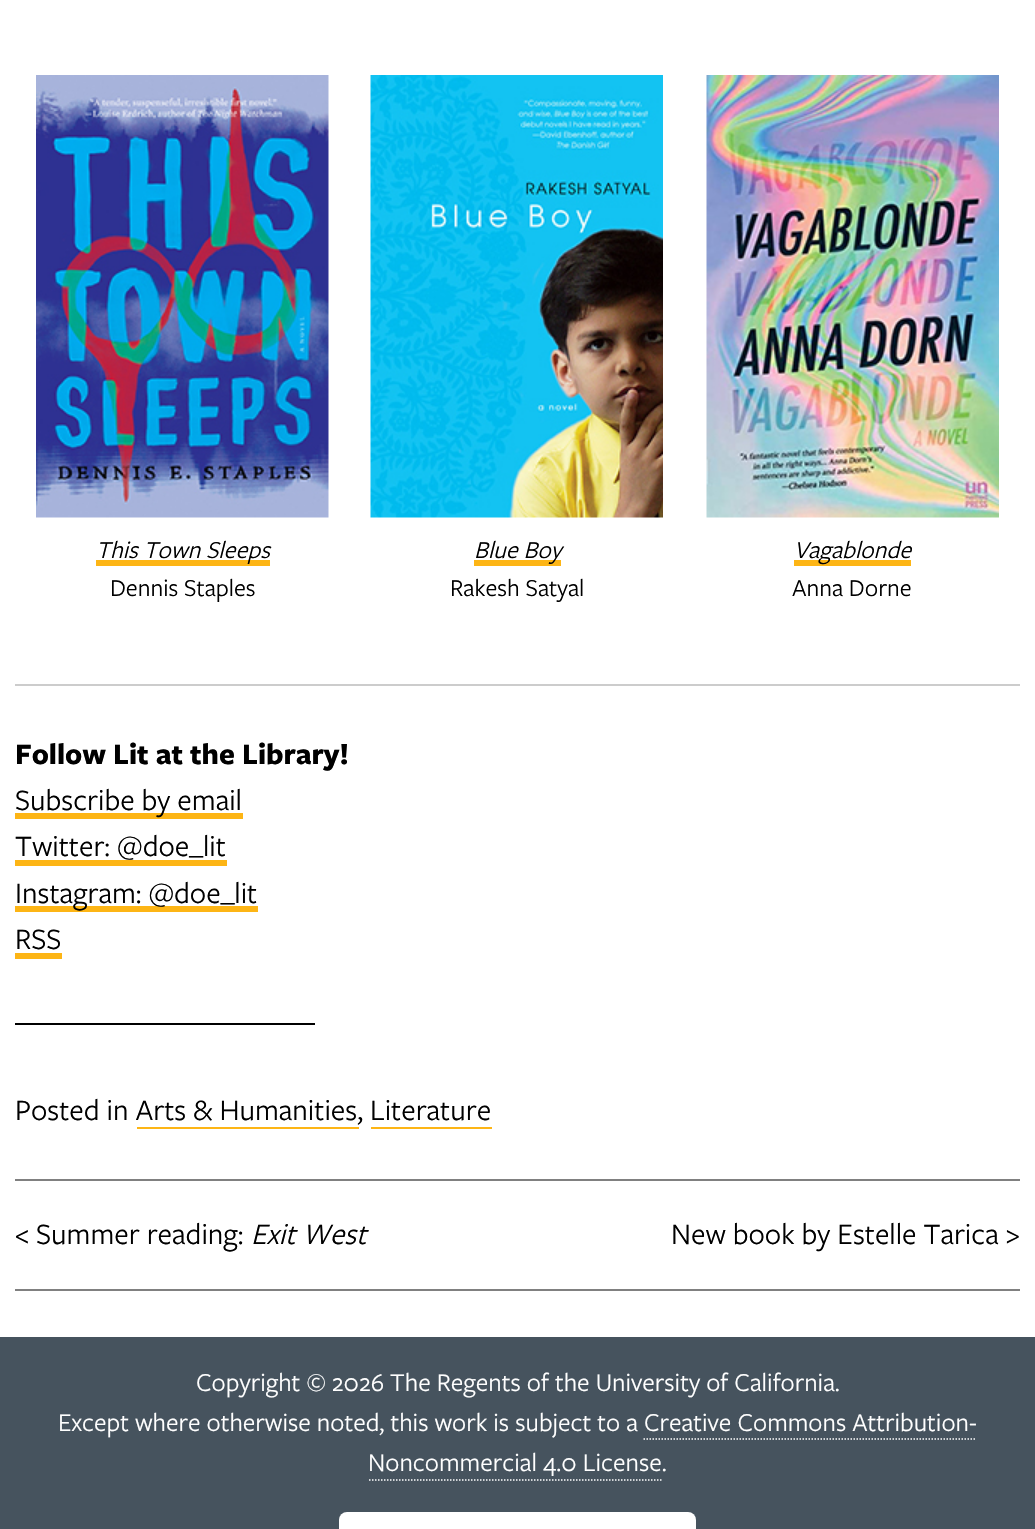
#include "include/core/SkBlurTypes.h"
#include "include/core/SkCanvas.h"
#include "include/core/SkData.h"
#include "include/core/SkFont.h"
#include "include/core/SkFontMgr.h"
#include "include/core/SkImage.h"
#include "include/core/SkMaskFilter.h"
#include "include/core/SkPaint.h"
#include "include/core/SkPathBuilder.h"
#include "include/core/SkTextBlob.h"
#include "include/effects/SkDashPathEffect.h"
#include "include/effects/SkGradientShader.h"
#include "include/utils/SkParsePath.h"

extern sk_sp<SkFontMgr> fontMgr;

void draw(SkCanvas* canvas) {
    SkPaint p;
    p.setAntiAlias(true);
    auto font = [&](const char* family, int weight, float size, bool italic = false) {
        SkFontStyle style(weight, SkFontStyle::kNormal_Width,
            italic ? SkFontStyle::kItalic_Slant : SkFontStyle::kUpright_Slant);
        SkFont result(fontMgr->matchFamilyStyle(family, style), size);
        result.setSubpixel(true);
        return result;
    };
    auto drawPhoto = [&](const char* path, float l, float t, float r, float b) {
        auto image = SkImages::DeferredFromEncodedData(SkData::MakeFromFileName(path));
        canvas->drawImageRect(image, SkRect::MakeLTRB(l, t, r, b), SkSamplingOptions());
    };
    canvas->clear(0xFFFFFFFF);
    drawPhoto("media/1.png", 36, 75, 329, 518);
    p.setColor(0xFFFDB515);
    canvas->drawRect(SkRect::MakeLTRB(96, 560, 270, 566), p);
    auto font1 = font("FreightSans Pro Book", 400, 25.25f, true);
    p.setColor(0xFF000000);
    canvas->drawString("This Town Sleeps", 96, 558, font1, p);
    auto font2 = font("FreightSans Pro Book", 400, 25.25f);
    canvas->drawString("Dennis Staples", 110, 596, font2, p);
    drawPhoto("media/2.png", 370, 75, 663, 518);
    p.setColor(0xFFFDB515);
    canvas->drawRect(SkRect::MakeLTRB(474, 560, 561, 566), p);
    p.setColor(0xFF000000);
    canvas->drawString("Blue Boy", 474, 558, font1, p);
    canvas->drawString("Rakesh Satyal", 450, 596, font2, p);
    drawPhoto("media/3.png", 706, 75, 999, 518);
    p.setColor(0xFFFDB515);
    canvas->drawRect(SkRect::MakeLTRB(794, 560, 911, 566), p);
    p.setColor(0xFF000000);
    canvas->drawString("Vagablonde", 794, 558, font1, p);
    canvas->drawString("Anna Dorne", 792, 596, font2, p);
    p.setColor(0xFFCCCCCC);
    canvas->drawRect(SkRect::MakeLTRB(15, 684, 1020, 686), p);
    auto font3 = font("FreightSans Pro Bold", 700, 30.75f);
    p.setColor(0xFF000000);
    canvas->drawString("Follow Lit at the Library!", 15, 764, font3, p);
    p.setColor(0xFFFDB515);
    canvas->drawRect(SkRect::MakeLTRB(15, 813, 243, 819), p);
    auto font4 = font("FreightSans Pro Book", 400, 30.75f);
    p.setColor(0xFF000000);
    canvas->drawString("Subscribe by email", 15, 810, font4, p);
    canvas->drawString("Twitter: @doe_lit", 15, 856, font4, p);
    p.setColor(0xFFFDB515);
    canvas->drawRect(SkRect::MakeLTRB(15, 860, 227, 866), p);
    canvas->drawRect(SkRect::MakeLTRB(15, 906, 258, 912), p);
    p.setColor(0xFF000000);
    canvas->drawString("Instagram: @doe_lit", 15, 903, font4, p);
    canvas->drawString("RSS", 15, 949, font4, p);
    p.setColor(0xFFFDB515);
    canvas->drawRect(SkRect::MakeLTRB(15, 953, 62, 959), p);
    p.setColor(0xFF000000);
    canvas->drawRect(SkRect::MakeLTRB(15, 1023, 315, 1025), p);
    canvas->drawString("Posted in Arts & Humanities, Literature", 15, 1120, font4, p);
    {
        const struct { float l, t, r, b; SkColor color; } items[] = {
            {137, 1127, 359, 1129, 0xFFFDB515},
            {371, 1127, 492, 1129, 0xFFFDB515},
            {15, 1179, 1020, 1181, 0xFF808080},
            {15, 1289, 1020, 1291, 0xFF808080},
        };
        for (auto [l, t, r, b, color] : items) {
            p.setColor(color);
            canvas->drawRect(SkRect::MakeLTRB(l, t, r, b), p);
        }
    }
    p.setColor(0xFF000000);
    canvas->drawString("< Summer reading:", 15, 1244, font4, p);
    auto font5 = font("FreightSans Pro Book", 400, 30.75f, true);
    canvas->drawString("Exit West", 251, 1244, font5, p);
    canvas->drawString("New book by Estelle Tarica >", 671, 1244, font4, p);
    p.setColor(0xFF46535E);
    canvas->drawRect(SkRect::MakeLTRB(0, 1337, 1035, 1529), p);
    auto font6 = font("FreightSans Pro Book", 400, 26.6f);
    p.setColor(0xFFFFFFFF);
    {
        const struct { const char* s; float x, y; } items[] = {
            {"Copyright © 2026 The Regents of the University of California.", 196, 1391},
            {"Except where otherwise noted, this work is subject to a Creative Commons Attribution-", 58, 1431},
            {"Noncommercial 4.0 License.", 368, 1471},
        };
        for (auto [s, x, y] : items) {
            canvas->drawString(s, x, y, font6, p);
        }
    }
    p.setStyle(SkPaint::kStroke_Style);
    p.setStrokeWidth(1.5f);
    p.setPathEffect(SkDashPathEffect::Make({{1.5f, 1.5f}}, 0));
    canvas->drawPath(SkPathBuilder().moveTo(643.5f, 1439).lineTo(976.5f, 1439).detach(), p);
    p.setPathEffect(nullptr);
    p.setPathEffect(SkDashPathEffect::Make({{1.5f, 1.5f}}, 0));
    canvas->drawPath(SkPathBuilder().moveTo(369, 1480).lineTo(661.5f, 1480).detach(), p);
    p.setPathEffect(nullptr);
    p.setStyle(SkPaint::kFill_Style);
    canvas->drawRoundRect(SkRect::MakeLTRB(339, 1512, 696, 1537), 8, 8, p);
}
